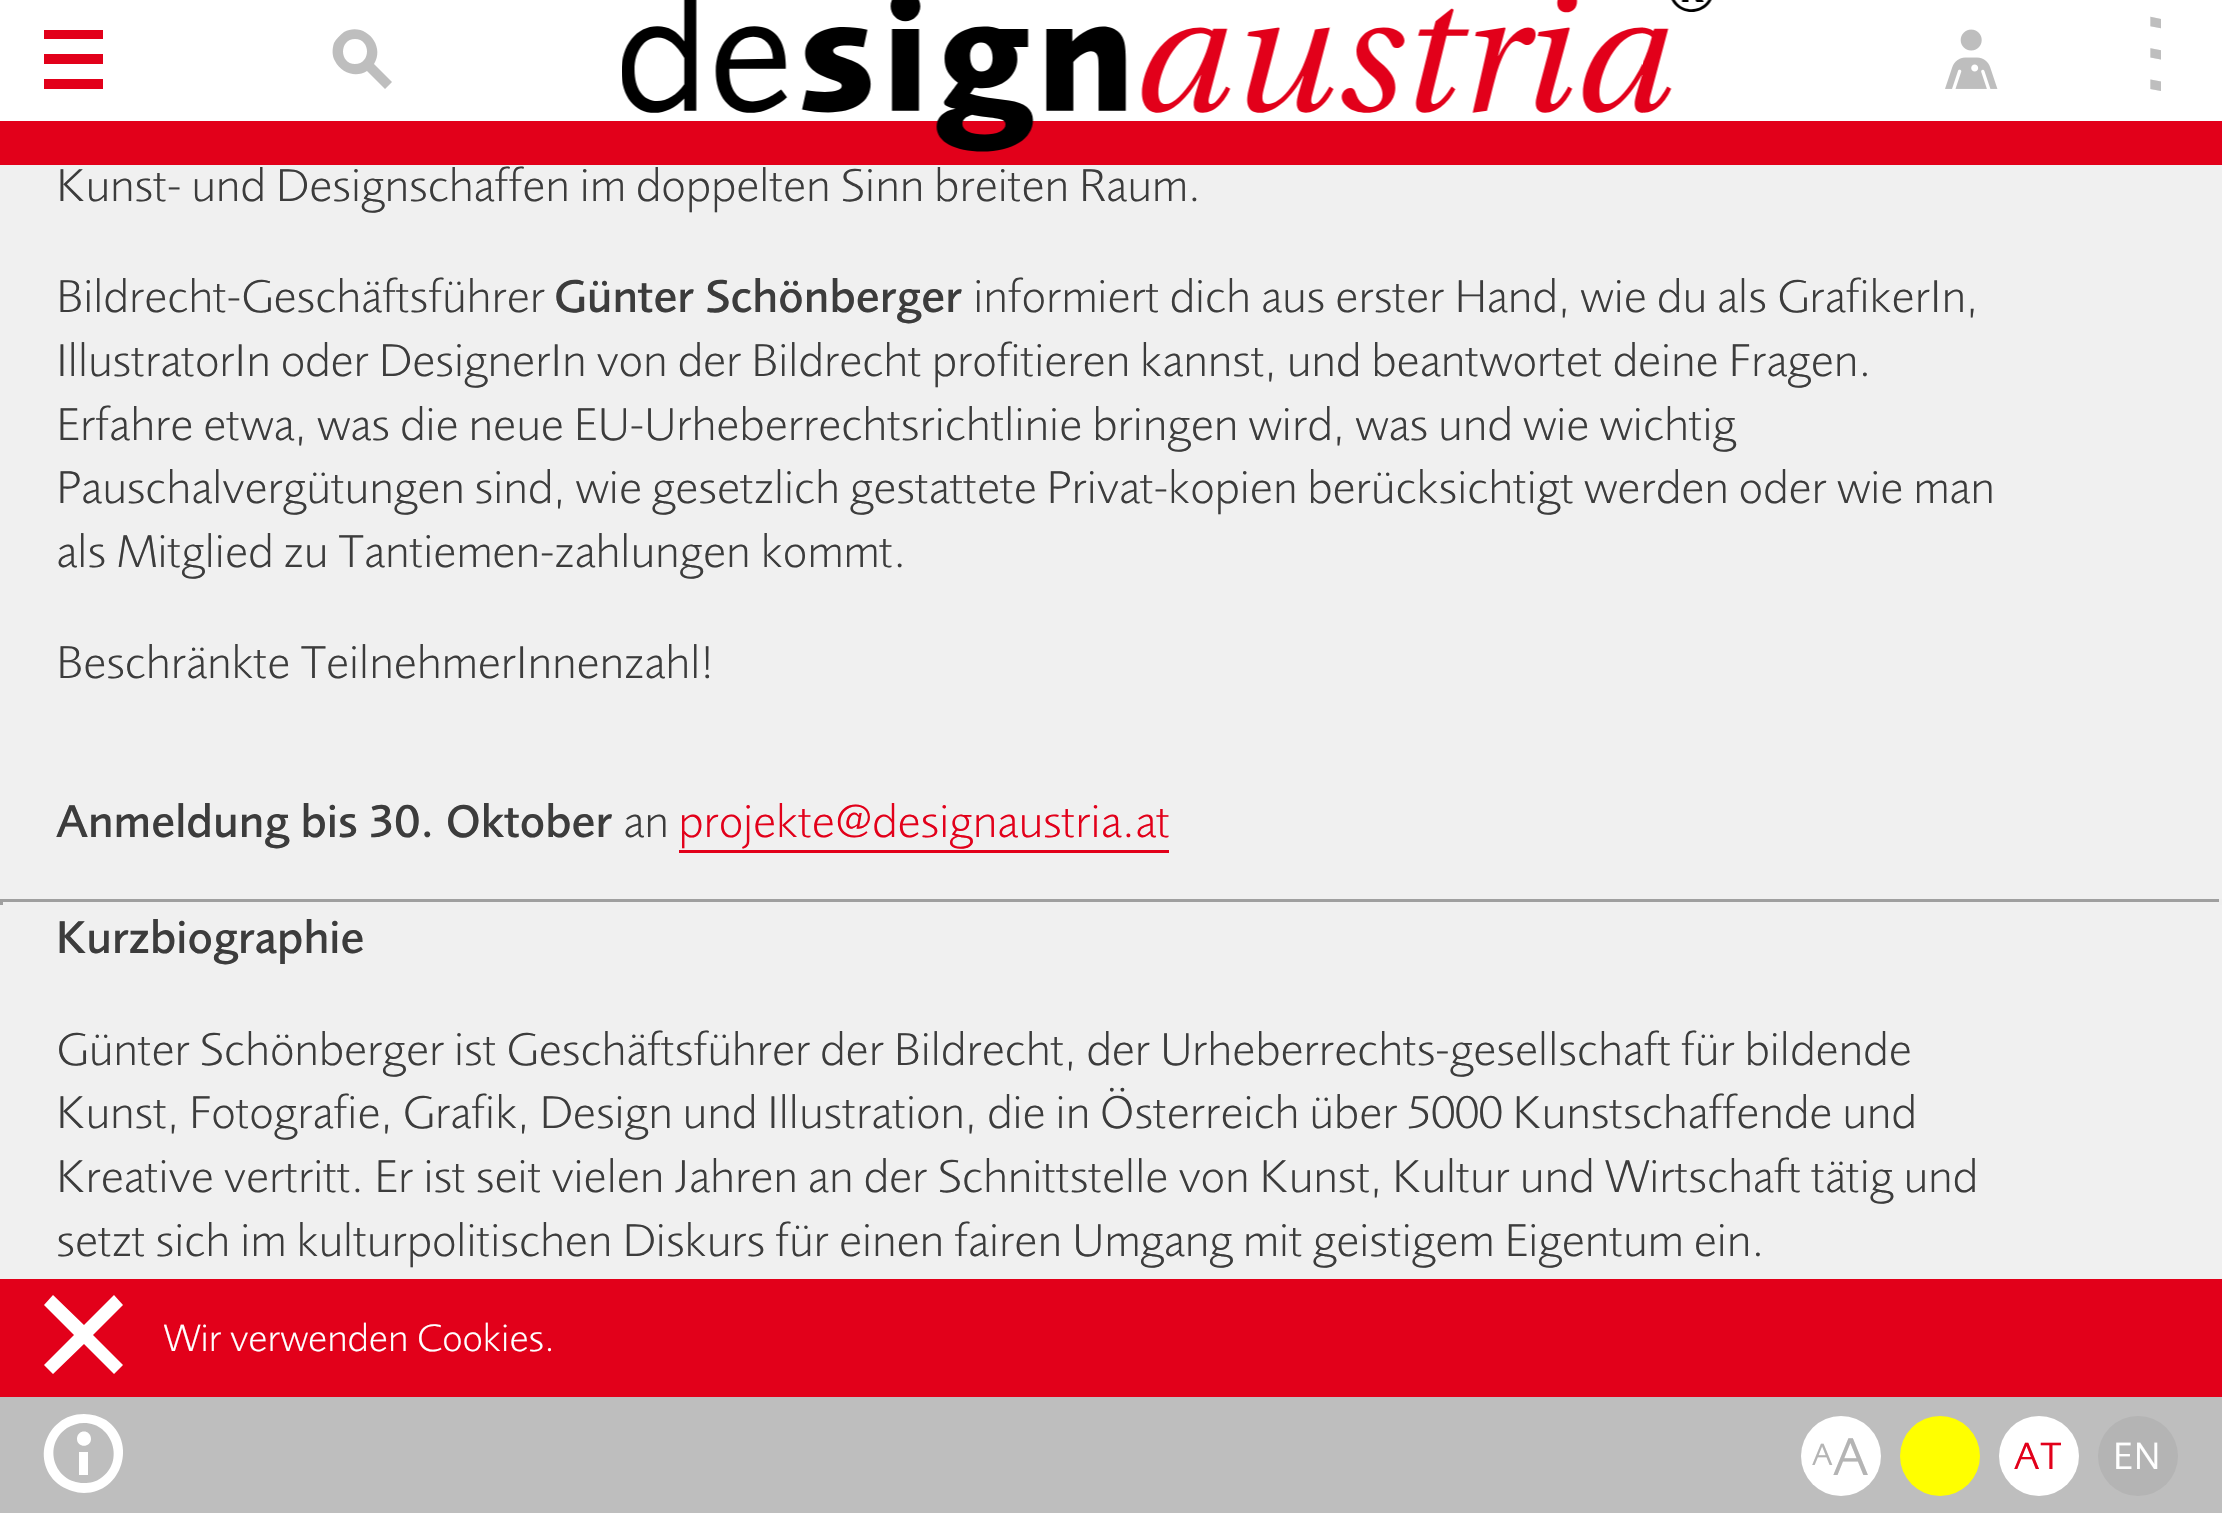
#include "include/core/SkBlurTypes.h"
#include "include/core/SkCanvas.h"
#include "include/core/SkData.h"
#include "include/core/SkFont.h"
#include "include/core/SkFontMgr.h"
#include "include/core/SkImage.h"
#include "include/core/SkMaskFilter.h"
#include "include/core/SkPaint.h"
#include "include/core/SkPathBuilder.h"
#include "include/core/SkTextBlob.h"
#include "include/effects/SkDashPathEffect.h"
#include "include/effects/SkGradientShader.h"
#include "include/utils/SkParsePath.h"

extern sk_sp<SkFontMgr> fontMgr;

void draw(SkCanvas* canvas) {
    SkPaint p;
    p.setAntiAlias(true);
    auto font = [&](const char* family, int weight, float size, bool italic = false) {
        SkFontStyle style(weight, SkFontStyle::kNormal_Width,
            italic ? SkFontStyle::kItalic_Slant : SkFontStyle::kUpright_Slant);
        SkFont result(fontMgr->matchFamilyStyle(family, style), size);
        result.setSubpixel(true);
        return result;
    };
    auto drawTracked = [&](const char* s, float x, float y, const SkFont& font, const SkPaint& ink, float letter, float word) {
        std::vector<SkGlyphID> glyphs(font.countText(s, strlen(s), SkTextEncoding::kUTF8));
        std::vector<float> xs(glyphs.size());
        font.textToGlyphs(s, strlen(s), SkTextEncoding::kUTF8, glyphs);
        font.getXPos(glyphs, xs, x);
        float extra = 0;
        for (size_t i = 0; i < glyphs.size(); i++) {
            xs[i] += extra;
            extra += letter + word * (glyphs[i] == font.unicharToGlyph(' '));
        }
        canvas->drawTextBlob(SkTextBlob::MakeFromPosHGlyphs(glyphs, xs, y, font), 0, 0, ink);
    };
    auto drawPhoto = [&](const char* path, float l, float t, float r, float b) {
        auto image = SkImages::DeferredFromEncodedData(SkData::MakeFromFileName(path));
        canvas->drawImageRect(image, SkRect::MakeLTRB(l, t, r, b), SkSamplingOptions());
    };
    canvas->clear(0xFFF0F0F0);
    p.setColor(0xFFFFFFFF);
    canvas->drawRect(SkRect::MakeLTRB(0, 0, 2222, 121), p);
    p.setColor(0xFFE2001A);
    canvas->drawPath(SkPathBuilder().moveTo(44, 30).lineTo(103, 30).lineTo(103, 39).lineTo(44, 39).close().moveTo(44, 54).lineTo(103, 54).lineTo(103, 64).lineTo(44, 64).close().moveTo(44, 79).lineTo(103, 79).lineTo(103, 89).lineTo(44, 89).close().detach(), p);
    drawPhoto("media/1.png", 1945, 29, 1998, 89);
    auto font1 = font("Liberation Sans", 400, 99, true);
    p.setColor(0xFFBEBEBE);
    canvas->save();
    canvas->rotate(-90, 2161, 100);
    canvas->drawString("…", 2161, 100, font1, p);
    canvas->restore();
    canvas->drawPath(SkPathBuilder().moveTo(392, 82).lineTo(374, 64).cubicTo(386, 45, 364, 21, 344, 32).cubicTo(340, 35, 336, 39, 334, 43).cubicTo(332, 49, 332, 56, 335, 61).cubicTo(341, 73, 356, 78, 367, 71).lineTo(385, 89).close().moveTo(355, 64).cubicTo(339, 64, 339, 39, 355, 39).cubicTo(371, 39, 371, 64, 355, 64).close().detach(), p);
    p.setColor(0xFFE2001A);
    canvas->drawRect(SkRect::MakeLTRB(0, 121, 2222, 165), p);
    drawPhoto("media/2.png", 622, 0, 1712, 152);
    auto font2 = font("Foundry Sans", 300, 47.5f);
    p.setColor(0xFF3C3C3C);
    drawTracked("Kunst- und Designschaffen im doppelten Sinn breiten Raum.", 56, 201, font2, p, 0, -0.1f);
    canvas->drawString("Bildrecht-Geschäftsführer", 56, 312, font2, p);
    auto font3 = font("Foundry Sans", 500, 47.5f);
    canvas->drawString("Günter Schönberger", 554, 312, font3, p);
    canvas->drawString("informiert dich aus erster Hand, wie du als GrafikerIn,", 973, 312, font2, p);
    drawTracked("IllustratorIn oder DesignerIn von der Bildrecht profitieren kannst, und beantwortet deine Fragen.", 56, 376, font2, p, 0, -0.1f);
    drawTracked("Erfahre etwa, was die neue EU-Urheberrechtsrichtlinie bringen wird, was und wie wichtig", 56, 440, font2, p, 0, -0.1f);
    drawTracked("Pauschalvergütungen sind, wie gesetzlich gestattete Privat-kopien berücksichtigt werden oder wie man", 56, 503, font2, p, 0, -0.25f);
    canvas->drawString("als Mitglied zu Tantiemen-zahlungen kommt.", 56, 567, font2, p);
    canvas->drawString("Beschränkte TeilnehmerInnenzahl!", 56, 678, font2, p);
    canvas->drawString("Anmeldung bis 30. Oktober", 56, 837, font3, p);
    canvas->drawString("an", 623, 837, font2, p);
    p.setColor(0xFFE2001A);
    canvas->drawString("projekte@designaustria.at", 678, 837, font2, p);
    {
        const struct { float l, t, r, b; SkColor color; } items[] = {
            {679, 850, 1169, 853, 0xFFE2001A},
            {0, 899, 2222, 902, 0xFF9F9F9F},
            {2219, 899, 2222, 905, 0xFFEEEEEE},
            {0, 899, 3, 905, 0xFF9F9F9F},
        };
        for (auto [l, t, r, b, color] : items) {
            p.setColor(color);
            canvas->drawRect(SkRect::MakeLTRB(l, t, r, b), p);
        }
    }
    p.setColor(0xFF3C3C3C);
    canvas->drawString("Kurzbiographie", 56, 953, font3, p);
    drawTracked("Günter Schönberger ist Geschäftsführer der Bildrecht, der Urheberrechts-gesellschaft für bildende", 56, 1065, font2, p, 0, -0.25f);
    drawTracked("Kunst, Fotografie, Grafik, Design und Illustration, die in Österreich über 5000 Kunstschaffende und", 56, 1128, font2, p, 0, -0.1f);
    canvas->drawString("Kreative vertritt. Er ist seit vielen Jahren an der Schnittstelle von Kunst, Kultur und Wirtschaft tätig und", 56, 1192, font2, p);
    canvas->drawString("setzt sich im kulturpolitischen Diskurs für einen fairen Umgang mit geistigem Eigentum ein.", 56, 1256, font2, p);
    p.setColor(0xFFBEBEBE);
    canvas->drawRect(SkRect::MakeLTRB(0, 1397, 2222, 1513), p);
    p.setColor(0xFFFFFFFF);
    canvas->drawPath(SkPathBuilder().moveTo(84, 1423).cubicTo(113, 1423, 125, 1462, 101, 1478).cubicTo(96, 1482, 90, 1483, 84, 1483).cubicTo(54, 1483, 42, 1445, 67, 1428).cubicTo(72, 1425, 78, 1423, 84, 1423).close().moveTo(84, 1414).cubicTo(45, 1414, 29, 1464, 61, 1486).cubicTo(68, 1490, 76, 1493, 84, 1493).cubicTo(122, 1493, 138, 1442, 106, 1420).cubicTo(99, 1416, 92, 1414, 84, 1414).close().moveTo(91, 1439).cubicTo(91, 1448, 77, 1448, 77, 1439).cubicTo(77, 1429, 91, 1429, 91, 1439).close().moveTo(79, 1452).lineTo(88, 1452).lineTo(88, 1475).lineTo(79, 1475).close().detach(), p);
    canvas->drawCircle(1841, 1456, 40, p);
    auto font4 = font("Foundry Sans", 400, 32);
    p.setColor(0xFFB4B4B4);
    drawTracked("A", 1812, 1465, font4, p, 1, 0);
    auto font5 = font("Foundry Sans", 400, 55);
    drawTracked("A", 1833, 1475, font5, p, 1, 0);
    p.setColor(0xFFFFFF00);
    canvas->drawCircle(1940, 1456, 40, p);
    p.setColor(0xFFFFFFFF);
    canvas->drawCircle(2039, 1456, 40, p);
    auto font6 = font("Foundry Sans", 400, 39.5f);
    p.setColor(0xFFE2001A);
    drawTracked("AT", 2014, 1469, font6, p, 1, 0);
    p.setColor(0xFFB4B4B4);
    canvas->drawCircle(2138, 1456, 40, p);
    p.setColor(0xFFFFFFFF);
    drawTracked("EN", 2113, 1469, font6, p, 1, 0);
    p.setColor(0xFFE2001A);
    canvas->drawRect(SkRect::MakeLTRB(0, 1279, 2222, 1397), p);
    p.setColor(0xFFFFFFFF);
    canvas->drawPath(SkPathBuilder().moveTo(123, 1305).lineTo(114, 1295).lineTo(84, 1325).lineTo(53, 1295).lineTo(44, 1305).lineTo(74, 1335).lineTo(44, 1365).lineTo(53, 1374).lineTo(84, 1344).lineTo(114, 1374).lineTo(123, 1365).lineTo(93, 1335).close().detach(), p);
    auto font7 = font("Foundry Sans", 300, 39.5f);
    canvas->drawString("Wir verwenden Cookies.", 163, 1351, font7, p);
}
